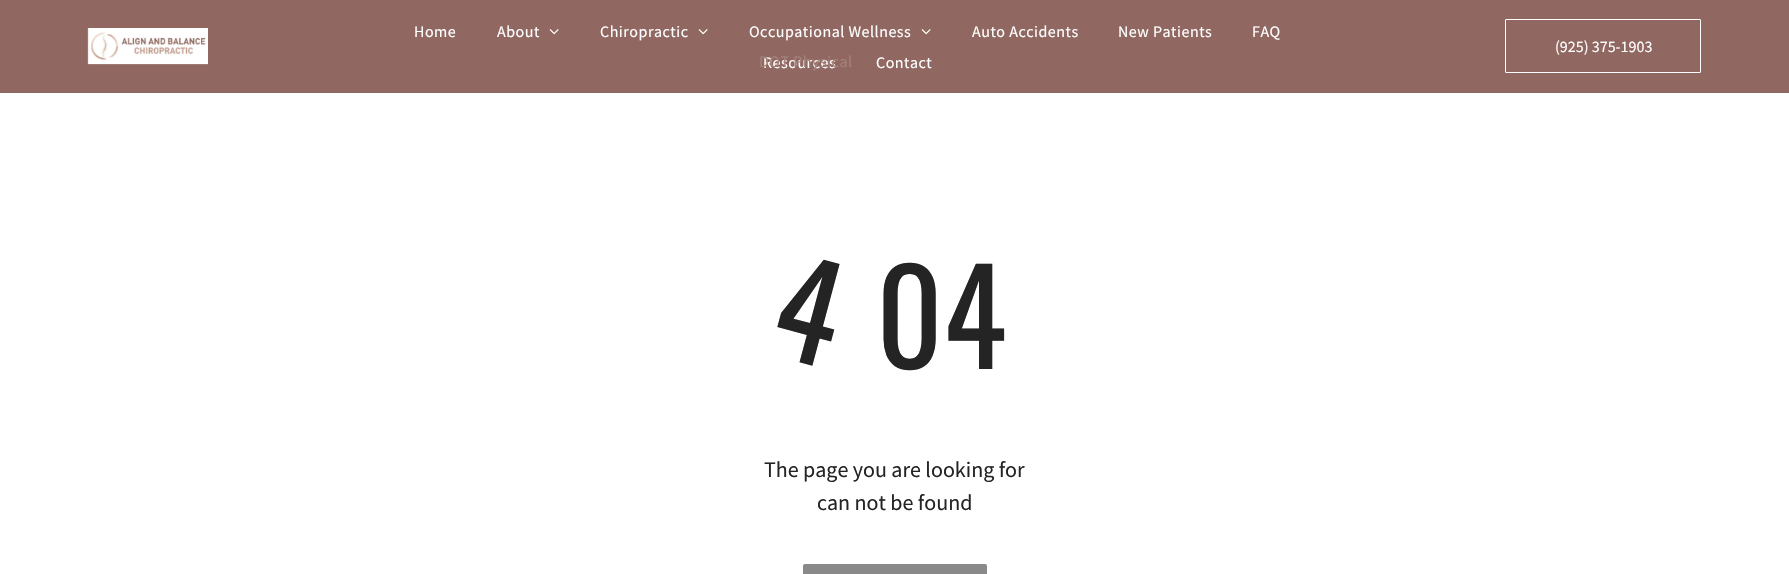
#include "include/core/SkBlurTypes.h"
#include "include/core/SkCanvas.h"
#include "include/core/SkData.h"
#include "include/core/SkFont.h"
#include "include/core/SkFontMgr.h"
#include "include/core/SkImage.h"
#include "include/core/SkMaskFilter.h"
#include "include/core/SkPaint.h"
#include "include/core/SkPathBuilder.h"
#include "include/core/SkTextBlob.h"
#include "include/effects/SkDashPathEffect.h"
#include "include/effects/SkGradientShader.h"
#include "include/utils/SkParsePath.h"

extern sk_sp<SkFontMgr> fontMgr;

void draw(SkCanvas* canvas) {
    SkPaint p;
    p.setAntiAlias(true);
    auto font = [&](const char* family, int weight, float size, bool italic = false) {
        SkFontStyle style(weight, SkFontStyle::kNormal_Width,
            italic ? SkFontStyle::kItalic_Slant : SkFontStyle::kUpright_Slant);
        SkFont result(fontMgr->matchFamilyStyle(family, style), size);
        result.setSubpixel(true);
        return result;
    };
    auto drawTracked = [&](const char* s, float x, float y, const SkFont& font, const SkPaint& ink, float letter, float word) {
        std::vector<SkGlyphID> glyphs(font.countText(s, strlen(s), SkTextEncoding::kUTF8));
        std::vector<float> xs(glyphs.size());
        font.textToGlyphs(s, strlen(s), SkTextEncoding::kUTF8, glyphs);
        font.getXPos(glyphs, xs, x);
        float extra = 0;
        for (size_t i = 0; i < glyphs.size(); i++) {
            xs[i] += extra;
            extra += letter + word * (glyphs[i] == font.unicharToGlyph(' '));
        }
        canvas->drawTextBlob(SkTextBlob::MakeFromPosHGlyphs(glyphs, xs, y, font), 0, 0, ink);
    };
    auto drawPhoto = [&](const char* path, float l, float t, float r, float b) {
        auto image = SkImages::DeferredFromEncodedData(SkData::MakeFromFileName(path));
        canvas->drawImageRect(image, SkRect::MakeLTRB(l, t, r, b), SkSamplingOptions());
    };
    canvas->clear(0xFFFFFFFF);
    p.setColor(0xFF906861);
    canvas->drawRect(SkRect::MakeLTRB(0, 0, 1789, 93), p);
    drawPhoto("media/1.png", 87, 28, 208, 65);
    auto font1 = font("Source Sans Pro", 400, 16);
    p.setColor(0xFFFFFFFF);
    drawTracked("Home", 414, 37, font1, p, 0.5f, 0);
    drawTracked("About", 497, 37, font1, p, 0.5f, 0);
    drawPhoto("media/2.png", 549, 29, 559, 35);
    drawTracked("Chiropractic", 600, 37, font1, p, 0.5f, 0);
    drawPhoto("media/2.png", 698, 29, 708, 35);
    drawTracked("Occupational Wellness", 749, 37, font1, p, 0.5f, 0);
    drawPhoto("media/2.png", 921, 29, 931, 35);
    drawTracked("Resources", 763, 68, font1, p, 0.5f, 0);
    p.setColor(0xFFA4837D);
    drawTracked("DOT Physical", 759, 67, font1, p, 0.5f, 0);
    p.setColor(0xFFFFFFFF);
    {
        const struct { const char* s; float x, y; } items[] = {
            {"Auto Accidents", 972, 37},
            {"New Patients", 1118, 37},
            {"FAQ", 1252, 37},
            {"Contact", 876, 68},
        };
        for (auto [s, x, y] : items) {
            drawTracked(s, x, y, font1, p, 0.5f, 0);
        }
    }
    p.setStyle(SkPaint::kStroke_Style);
    p.setStrokeWidth(1);
    canvas->drawRoundRect(SkRect::MakeLTRB(1505.5f, 19.5f, 1700.5f, 72.5f), 0.5f, 0.5f, p);
    p.setStyle(SkPaint::kFill_Style);
    canvas->drawString("(925) 375-1903", 1555, 52, font1, p);
    auto font2 = font("Oswald", 400, 130);
    p.setColor(0xFF242424);
    canvas->save();
    canvas->rotate(15, 765, 353);
    canvas->drawString("4", 765, 353, font2, p);
    canvas->restore();
    canvas->drawString("04", 876, 369, font2, p);
    auto font3 = font("Source Sans Pro", 400, 22);
    canvas->drawString("The page you are looking for", 764, 477, font3, p);
    canvas->drawString("can not be found", 817, 510, font3, p);
    p.setColor(0xFF898989);
    canvas->drawRoundRect(SkRect::MakeLTRB(803, 564, 987, 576), 2, 2, p);
}
